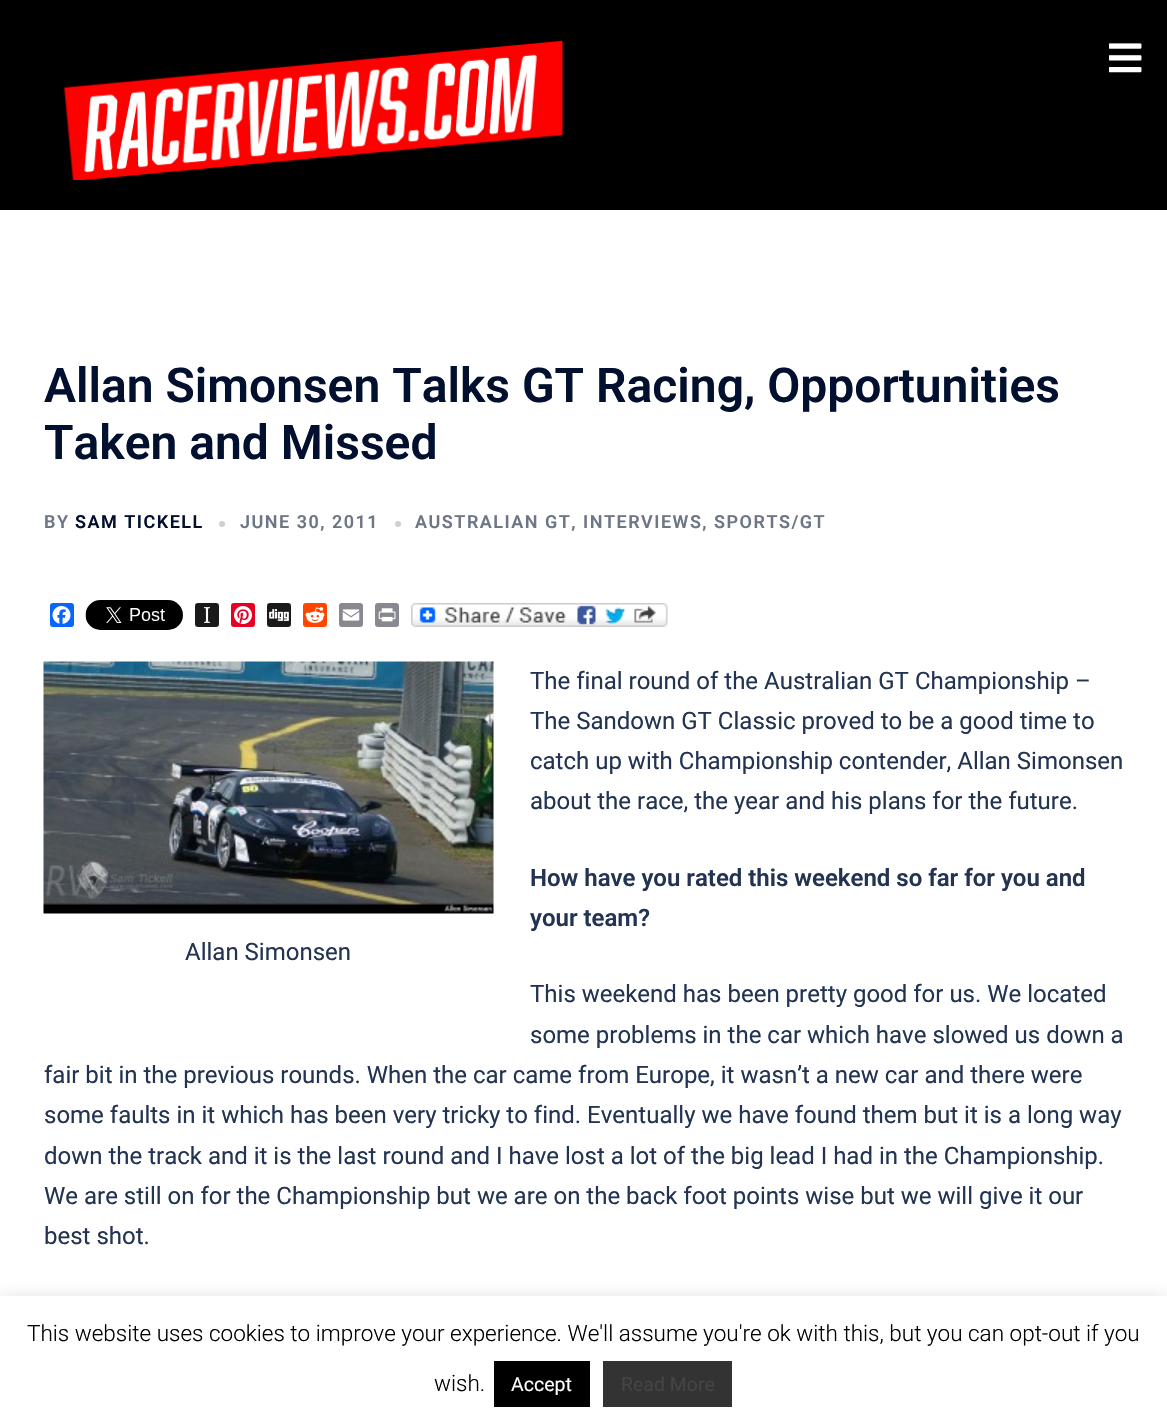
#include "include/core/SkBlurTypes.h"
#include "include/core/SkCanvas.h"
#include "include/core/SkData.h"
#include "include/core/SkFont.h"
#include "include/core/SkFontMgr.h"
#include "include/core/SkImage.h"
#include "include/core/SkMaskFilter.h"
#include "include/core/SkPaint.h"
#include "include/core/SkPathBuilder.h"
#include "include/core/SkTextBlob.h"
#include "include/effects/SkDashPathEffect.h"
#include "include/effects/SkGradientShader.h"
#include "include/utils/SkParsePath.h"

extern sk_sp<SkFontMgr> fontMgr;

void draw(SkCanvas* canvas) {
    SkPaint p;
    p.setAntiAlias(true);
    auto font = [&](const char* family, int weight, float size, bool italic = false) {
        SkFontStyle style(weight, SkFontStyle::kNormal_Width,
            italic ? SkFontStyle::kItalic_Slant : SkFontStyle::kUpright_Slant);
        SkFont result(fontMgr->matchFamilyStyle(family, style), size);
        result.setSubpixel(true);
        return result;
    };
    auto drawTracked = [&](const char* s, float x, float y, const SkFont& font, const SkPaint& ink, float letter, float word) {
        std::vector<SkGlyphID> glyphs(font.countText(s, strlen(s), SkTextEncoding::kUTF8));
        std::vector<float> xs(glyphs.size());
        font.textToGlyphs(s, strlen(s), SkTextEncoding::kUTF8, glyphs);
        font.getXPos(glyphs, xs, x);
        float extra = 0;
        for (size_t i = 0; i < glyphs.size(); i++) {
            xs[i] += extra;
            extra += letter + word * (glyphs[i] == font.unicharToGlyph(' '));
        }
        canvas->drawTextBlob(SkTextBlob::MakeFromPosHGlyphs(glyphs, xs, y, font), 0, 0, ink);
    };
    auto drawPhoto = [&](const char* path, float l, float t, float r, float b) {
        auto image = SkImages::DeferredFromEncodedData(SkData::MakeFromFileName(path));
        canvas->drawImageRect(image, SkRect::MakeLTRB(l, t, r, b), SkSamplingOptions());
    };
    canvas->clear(0xFFFFFFFF);
    p.setColor(0xFF000000);
    canvas->drawRect(SkRect::MakeLTRB(0, 0, 1167, 210), p);
    drawPhoto("media/1.png", 64, 40, 563, 180);
    drawPhoto("media/2.png", 1109, 43, 1142, 73);
    auto font1 = font("Roboto", 600, 48);
    p.setColor(0xFF00102E);
    canvas->drawString("Allan Simonsen Talks GT Racing, Opportunities", 44, 402, font1, p);
    canvas->drawString("Taken and Missed", 44, 459, font1, p);
    auto font2 = font("Roboto", 600, 18);
    p.setColor(0xFF6D7685);
    drawTracked("BY", 44, 528, font2, p, 1.5f, 0);
    p.setColor(0xFF00102E);
    drawTracked("SAM TICKELL", 75, 528, font2, p, 1.5f, 0);
    p.setColor(0xFFCCCFD5);
    canvas->drawCircle(222, 524, 3, p);
    p.setColor(0xFF6D7685);
    drawTracked("JUNE 30, 2011", 240, 528, font2, p, 1.5f, 0);
    p.setColor(0xFFCCCFD5);
    canvas->drawCircle(398, 524, 3, p);
    p.setColor(0xFF6D7685);
    drawTracked("AUSTRALIAN GT, INTERVIEWS, SPORTS/GT", 415, 528, font2, p, 1.5f, 0);
    p.setColor(0xFF0866FF);
    canvas->drawRoundRect(SkRect::MakeLTRB(50, 603, 74, 627), 3, 3, p);
    drawPhoto("media/3.png", 52, 606, 71, 624);
    drawPhoto("media/4.png", 85, 600, 183, 630);
    p.setColor(0xFF1A1A1A);
    canvas->drawRoundRect(SkRect::MakeLTRB(195, 603, 219, 627), 3, 3, p);
    drawPhoto("media/5.png", 204, 607, 210, 623);
    p.setColor(0xFFE60023);
    canvas->drawRoundRect(SkRect::MakeLTRB(231, 603, 255, 627), 3, 3, p);
    drawPhoto("media/6.png", 234, 606, 252, 624);
    p.setColor(0xFF1A1A1A);
    canvas->drawRoundRect(SkRect::MakeLTRB(267, 603, 291, 627), 3, 3, p);
    drawPhoto("media/7.png", 269, 609, 289, 621);
    p.setColor(0xFFFF4500);
    canvas->drawRoundRect(SkRect::MakeLTRB(303, 603, 327, 627), 3, 3, p);
    drawPhoto("media/8.png", 305, 607, 325, 623);
    p.setColor(0xFF888990);
    canvas->drawRoundRect(SkRect::MakeLTRB(339, 603, 363, 627), 3, 3, p);
    drawPhoto("media/9.png", 342, 609, 360, 621);
    canvas->drawRoundRect(SkRect::MakeLTRB(375, 603, 399, 627), 3, 3, p);
    drawPhoto("media/10.png", 378, 608, 396, 622);
    drawPhoto("media/11.png", 411, 603, 668, 627);
    auto font3 = font("Roboto", 400, 24);
    p.setColor(0xFF233452);
    {
        const struct { const char* s; float x, y; } items[] = {
            {"The final round of the Australian GT Championship –", 530, 689},
            {"The Sandown GT Classic proved to be a good time to", 530, 729},
            {"catch up with Championship contender, Allan Simonsen", 530, 769},
            {"about the race, the year and his plans for the future.", 530, 809},
        };
        for (auto [s, x, y] : items) {
            canvas->drawString(s, x, y, font3, p);
        }
    }
    auto font4 = font("Roboto", 600, 24);
    canvas->drawString("How have you rated this weekend so far for you and", 530, 886, font4, p);
    canvas->drawString("your team?", 530, 926, font4, p);
    drawPhoto("media/12.png", 43, 661, 494, 914);
    {
        const struct { const char* s; float x, y; } items[] = {
            {"Allan Simonsen", 185, 960},
            {"This weekend has been pretty good for us. We located", 530, 1002},
            {"some problems in the car which have slowed us down a", 530, 1043},
            {"fair bit in the previous rounds. When the car came from Europe, it wasn’t a new car and there were", 44, 1083},
            {"some faults in it which has been very tricky to find. Eventually we have found them but it is a long way", 44, 1123},
            {"down the track and it is the last round and I have lost a lot of the big lead I had in the Championship.", 44, 1164},
            {"We are still on for the Championship but we are on the back foot points wise but we will give it our", 44, 1204},
            {"best shot.", 44, 1244},
        };
        for (auto [s, x, y] : items) {
            canvas->drawString(s, x, y, font3, p);
        }
    }
    p.setColor(0x4DACABAB);
    p.setMaskFilter(SkMaskFilter::MakeBlur(kNormal_SkBlurStyle, 7.5f));
    canvas->drawRect(SkRect::MakeLTRB(0, 1295, 1167, 1424), p);
    p.setMaskFilter(nullptr);
    p.setColor(0xFFFFFFFF);
    canvas->drawRect(SkRect::MakeLTRB(0, 1296, 1167, 1425), p);
    auto font5 = font("Roboto", 300, 22.5f);
    p.setColor(0xFF000000);
    canvas->drawString("This website uses cookies to improve your experience. We'll assume you're ok with this, but you can opt-out if you", 27, 1341, font5, p);
    canvas->drawString("wish.", 434, 1391, font5, p);
    canvas->drawRect(SkRect::MakeLTRB(494, 1361, 590, 1407), p);
    auto font6 = font("Roboto", 400, 19.5f);
    p.setColor(0xFFFFFFFF);
    canvas->drawString("Accept", 511, 1391, font6, p);
    p.setColor(0xFF333333);
    canvas->drawRect(SkRect::MakeLTRB(603, 1361, 732, 1407), p);
    p.setColor(0xFF444444);
    canvas->drawString("Read More", 621, 1391, font6, p);
}
